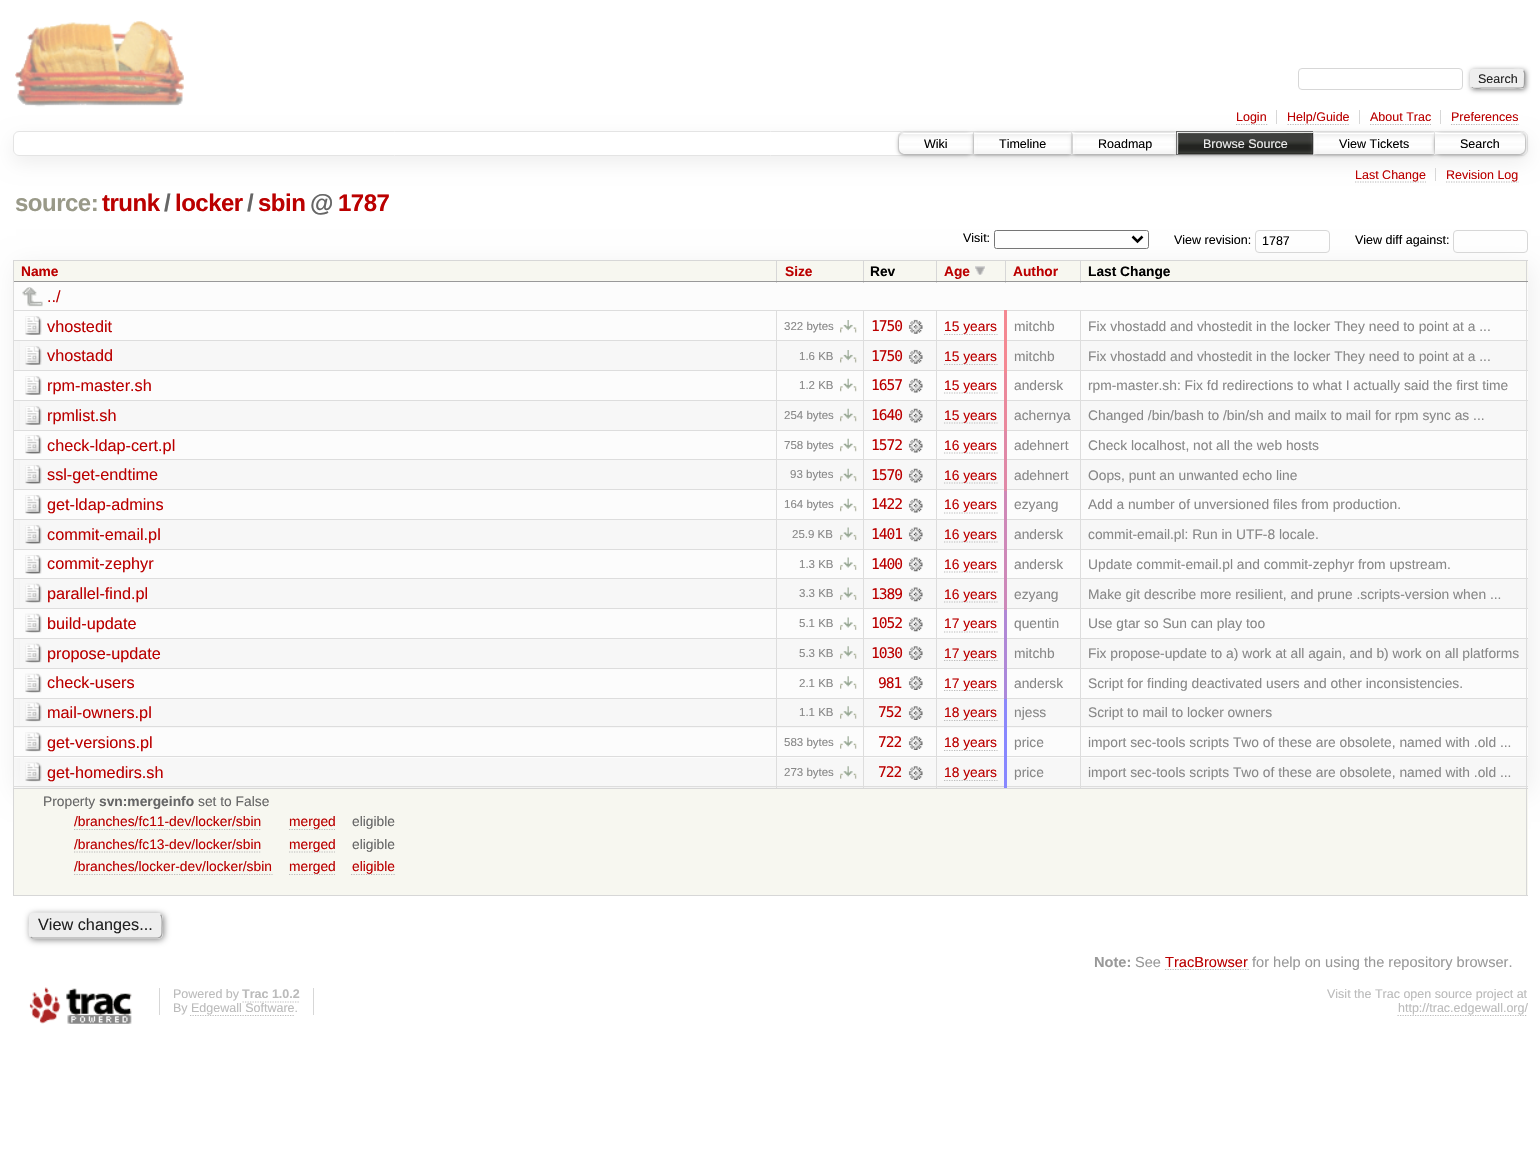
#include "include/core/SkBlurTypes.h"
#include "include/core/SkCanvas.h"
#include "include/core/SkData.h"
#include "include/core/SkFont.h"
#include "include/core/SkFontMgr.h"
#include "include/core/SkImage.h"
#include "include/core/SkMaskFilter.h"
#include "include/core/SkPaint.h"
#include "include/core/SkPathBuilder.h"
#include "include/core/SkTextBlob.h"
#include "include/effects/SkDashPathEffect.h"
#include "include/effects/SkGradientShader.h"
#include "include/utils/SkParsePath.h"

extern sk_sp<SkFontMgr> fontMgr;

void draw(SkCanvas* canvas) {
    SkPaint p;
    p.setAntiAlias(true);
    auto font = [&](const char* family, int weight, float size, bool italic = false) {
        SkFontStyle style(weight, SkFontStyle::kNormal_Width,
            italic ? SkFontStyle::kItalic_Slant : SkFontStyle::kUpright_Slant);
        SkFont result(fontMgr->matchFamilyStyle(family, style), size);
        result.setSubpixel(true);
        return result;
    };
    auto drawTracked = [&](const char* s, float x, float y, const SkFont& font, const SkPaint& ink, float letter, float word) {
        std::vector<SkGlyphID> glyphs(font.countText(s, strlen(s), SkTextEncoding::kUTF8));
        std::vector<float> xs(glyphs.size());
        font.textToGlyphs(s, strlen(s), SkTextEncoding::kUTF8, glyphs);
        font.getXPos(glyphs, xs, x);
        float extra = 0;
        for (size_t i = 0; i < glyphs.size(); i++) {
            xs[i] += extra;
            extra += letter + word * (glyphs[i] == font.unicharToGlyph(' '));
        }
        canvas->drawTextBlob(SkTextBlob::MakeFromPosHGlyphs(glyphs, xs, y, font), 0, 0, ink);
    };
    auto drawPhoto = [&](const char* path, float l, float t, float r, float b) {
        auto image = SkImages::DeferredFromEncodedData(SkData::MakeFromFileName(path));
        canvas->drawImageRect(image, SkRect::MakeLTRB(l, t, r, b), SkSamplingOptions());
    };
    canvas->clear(0xFFFFFFFF);
    drawPhoto("media/1.png", 15, 21, 184, 107);
    p.setStyle(SkPaint::kStroke_Style);
    p.setStrokeWidth(1);
    p.setColor(0xFFD7D7D7);
    canvas->drawRoundRect(SkRect::MakeLTRB(1298.5f, 68.5f, 1462.5f, 89.5f), 3.5f, 3.5f, p);
    p.setStyle(SkPaint::kFill_Style);
    p.setColor(0xFF888888);
    p.setMaskFilter(SkMaskFilter::MakeBlur(kNormal_SkBlurStyle, 2.5f));
    canvas->drawRoundRect(SkRect::MakeLTRB(1471, 70, 1526, 90), 4, 4, p);
    p.setMaskFilter(nullptr);
    p.setColor(0xFFEEEEEE);
    canvas->drawRoundRect(SkRect::MakeLTRB(1470, 69, 1525, 89), 4, 4, p);
    p.setStyle(SkPaint::kStroke_Style);
    p.setStrokeWidth(1.2f);
    p.setColor(0xFF9F9F9F);
    canvas->drawPath(SkPathBuilder().moveTo(1523.5f, 70.5f).cubicTo(1525.5f, 72.5f, 1524.5f, 76.5f, 1524.5f, 79).cubicTo(1524.5f, 89.5f, 1525, 88, 1513.5f, 88).lineTo(1481.5f, 88).cubicTo(1481, 88, 1473.5f, 89.5f, 1471.5f, 87).detach(), p);
    p.setColor(0xFFEEEEEE);
    canvas->drawPath(SkPathBuilder().moveTo(1471.5f, 87).cubicTo(1469.5f, 85, 1470.5f, 81, 1470.5f, 79).cubicTo(1470.5f, 68, 1470, 69.5f, 1481.5f, 69.5f).lineTo(1513.5f, 69.5f).cubicTo(1514, 69.5f, 1521.5f, 68, 1523.5f, 70.5f).detach(), p);
    auto font1 = font("Liberation Sans", 400, 12.5f);
    p.setStyle(SkPaint::kFill_Style);
    p.setColor(0xFF222222);
    canvas->drawString("Search", 1478, 83, font1, p);
    canvas->save();
    canvas->clipPath(SkPathBuilder(SkPathFillType::kEvenOdd).moveTo(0, 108).lineTo(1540, 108).lineTo(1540, 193).lineTo(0, 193).close().moveTo(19, 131).lineTo(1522, 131).cubicTo(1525.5f, 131, 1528, 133.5f, 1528, 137).lineTo(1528, 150).cubicTo(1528, 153.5f, 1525.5f, 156, 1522, 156).lineTo(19, 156).cubicTo(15.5f, 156, 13, 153.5f, 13, 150).lineTo(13, 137).cubicTo(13, 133.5f, 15.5f, 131, 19, 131).close().detach(), true);
    p.setColor(0xFFEEEEEE);
    p.setMaskFilter(SkMaskFilter::MakeBlur(kNormal_SkBlurStyle, 9.5f));
    canvas->drawRoundRect(SkRect::MakeLTRB(13, 138, 1528, 163), 6, 6, p);
    p.setMaskFilter(nullptr);
    canvas->restore();
    p.setColor(0xFFD7D7D7);
    canvas->drawRect(SkRect::MakeLTRB(1276, 110, 1277, 124), p);
    p.setStyle(SkPaint::kStroke_Style);
    p.setColor(0xFFBBBBBB);
    p.setPathEffect(SkDashPathEffect::Make({{1.25f, 1.25f}}, 0));
    canvas->drawPath(SkPathBuilder().moveTo(1236, 124.5f).lineTo(1267.5f, 124.5f).detach(), p);
    p.setPathEffect(nullptr);
    p.setStyle(SkPaint::kFill_Style);
    p.setColor(0xFFBB0000);
    canvas->drawString("Login", 1236, 121, font1, p);
    p.setColor(0xFFD7D7D7);
    canvas->drawRect(SkRect::MakeLTRB(1359, 110, 1360, 124), p);
    p.setStyle(SkPaint::kStroke_Style);
    p.setColor(0xFFBBBBBB);
    p.setPathEffect(SkDashPathEffect::Make({{1.25f, 1.25f}}, 0));
    canvas->drawPath(SkPathBuilder().moveTo(1287.5f, 124.5f).lineTo(1350, 124.5f).detach(), p);
    p.setPathEffect(nullptr);
    p.setStyle(SkPaint::kFill_Style);
    p.setColor(0xFFBB0000);
    canvas->drawString("Help/Guide", 1287, 121, font1, p);
    p.setColor(0xFFD7D7D7);
    canvas->drawRect(SkRect::MakeLTRB(1440, 110, 1441, 124), p);
    p.setColor(0xFFBB0000);
    canvas->drawString("About Trac", 1370, 121, font1, p);
    p.setStyle(SkPaint::kStroke_Style);
    p.setColor(0xFFBBBBBB);
    p.setPathEffect(SkDashPathEffect::Make({{1.25f, 1.25f}}, 0));
    canvas->drawPath(SkPathBuilder().moveTo(1370, 124.5f).lineTo(1431, 124.5f).detach(), p);
    p.setPathEffect(nullptr);
    p.setStyle(SkPaint::kFill_Style);
    p.setColor(0xFFBB0000);
    canvas->drawString("Preferences", 1451, 121, font1, p);
    p.setStyle(SkPaint::kStroke_Style);
    p.setColor(0xFFBBBBBB);
    p.setPathEffect(SkDashPathEffect::Make({{1.25f, 1.25f}}, 0));
    canvas->drawPath(SkPathBuilder().moveTo(1451, 124.5f).lineTo(1519, 124.5f).detach(), p);
    p.setPathEffect(nullptr);
    p.setStrokeWidth(1);
    p.setColor(0xFFE4E4E4);
    canvas->drawRoundRect(SkRect::MakeLTRB(13.5f, 131.5f, 1527.5f, 155.5f), 5.5f, 5.5f, p);
    p.setStyle(SkPaint::kFill_Style);
    p.setColor(0xFFFFFFFF);
    canvas->drawPath(SkPathBuilder().moveTo(904, 131).lineTo(974, 131).lineTo(974, 155).lineTo(904, 155).cubicTo(900.5f, 155, 898, 152.5f, 898, 149).lineTo(898, 137).cubicTo(898, 133.5f, 900.5f, 131, 904, 131).close().detach(), p);
    drawPhoto("media/2.png", 898, 134, 973, 155);
    p.setStyle(SkPaint::kStroke_Style);
    p.setColor(0xFFE4E4E4);
    canvas->drawPath(SkPathBuilder().moveTo(904, 131.5f).lineTo(973.5f, 131.5f).lineTo(973.5f, 154.5f).lineTo(904, 154.5f).cubicTo(901, 154.5f, 898.5f, 152, 898.5f, 149).lineTo(898.5f, 137).cubicTo(898.5f, 134, 901, 131.5f, 904, 131.5f).close().detach(), p);
    canvas->save();
    canvas->clipPath(SkPathBuilder(SkPathFillType::kEvenOdd).moveTo(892, 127).lineTo(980, 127).lineTo(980, 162).lineTo(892, 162).close().moveTo(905, 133).lineTo(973, 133).lineTo(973, 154).lineTo(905, 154).cubicTo(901.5f, 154, 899, 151.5f, 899, 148).lineTo(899, 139).cubicTo(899, 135.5f, 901.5f, 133, 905, 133).close().detach(), true);
    p.setStyle(SkPaint::kFill_Style);
    p.setColor(0xFF999999);
    p.setMaskFilter(SkMaskFilter::MakeBlur(kNormal_SkBlurStyle, 2));
    canvas->drawRoundRect(SkRect::MakeLTRB(899, 134, 973, 155), 6, 6, p);
    p.setMaskFilter(nullptr);
    canvas->restore();
    p.setColor(0xFF000000);
    canvas->drawString("Wiki", 924, 148, font1, p);
    p.setColor(0xFFFFFFFF);
    canvas->drawRect(SkRect::MakeLTRB(974, 134, 977, 154), p);
    drawPhoto("media/3.png", 972, 134, 1071, 154);
    p.setStyle(SkPaint::kStroke_Style);
    p.setColor(0xFFE4E4E4);
    canvas->drawRect(SkRect::MakeLTRB(973.5f, 131.5f, 1072.5f, 154.5f), p);
    canvas->save();
    canvas->clipPath(SkPathBuilder(SkPathFillType::kEvenOdd).moveTo(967, 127).lineTo(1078, 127).lineTo(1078, 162).lineTo(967, 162).close().moveTo(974, 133).lineTo(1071, 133).lineTo(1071, 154).lineTo(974, 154).close().detach(), true);
    p.setStyle(SkPaint::kFill_Style);
    p.setColor(0xFF999999);
    p.setMaskFilter(SkMaskFilter::MakeBlur(kNormal_SkBlurStyle, 2));
    canvas->drawRect(SkRect::MakeLTRB(974, 134, 1071, 155), p);
    p.setMaskFilter(nullptr);
    canvas->restore();
    p.setColor(0xFF000000);
    canvas->drawString("Timeline", 999, 148, font1, p);
    p.setColor(0xFFFFFFFF);
    canvas->drawRect(SkRect::MakeLTRB(1072, 132, 1075, 154), p);
    drawPhoto("media/4.png", 1072, 134, 1176, 154);
    p.setStyle(SkPaint::kStroke_Style);
    p.setColor(0xFFE4E4E4);
    canvas->drawRect(SkRect::MakeLTRB(1071.5f, 131.5f, 1177.5f, 154.5f), p);
    canvas->save();
    canvas->clipPath(SkPathBuilder(SkPathFillType::kEvenOdd).moveTo(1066, 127).lineTo(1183, 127).lineTo(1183, 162).lineTo(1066, 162).close().moveTo(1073, 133).lineTo(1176, 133).lineTo(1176, 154).lineTo(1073, 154).close().detach(), true);
    p.setStyle(SkPaint::kFill_Style);
    p.setColor(0xFF999999);
    p.setMaskFilter(SkMaskFilter::MakeBlur(kNormal_SkBlurStyle, 2));
    canvas->drawRect(SkRect::MakeLTRB(1073, 134, 1176, 155), p);
    p.setMaskFilter(nullptr);
    canvas->restore();
    p.setColor(0xFF000000);
    canvas->drawString("Roadmap", 1098, 148, font1, p);
    p.setColor(0xFFFFFFFF);
    canvas->drawRect(SkRect::MakeLTRB(1177, 132, 1180, 154), p);
    drawPhoto("media/5.png", 1177, 134, 1178, 154);
    p.setStyle(SkPaint::kStroke_Style);
    p.setColor(0xFF666666);
    canvas->drawRect(SkRect::MakeLTRB(1176.5f, 131.5f, 1313.5f, 154.5f), p);
    p.setStyle(SkPaint::kFill_Style);
    p.setColor(0xFF999999);
    p.setMaskFilter(SkMaskFilter::MakeBlur(kNormal_SkBlurStyle, 2));
    canvas->drawRect(SkRect::MakeLTRB(1178, 134, 1313, 155), p);
    p.setMaskFilter(nullptr);
    p.setColor(0xFF000000);
    canvas->drawRect(SkRect::MakeLTRB(1178, 133, 1313, 154), p);
    drawPhoto("media/6.png", 1178, 132, 1313, 154);
    p.setColor(0xFFEEEEEE);
    canvas->drawString("Browse Source", 1203, 148, font1, p);
    p.setColor(0xFFFFFFFF);
    canvas->drawRect(SkRect::MakeLTRB(1314, 132, 1317, 154), p);
    drawPhoto("media/7.png", 1312, 134, 1434, 154);
    p.setStyle(SkPaint::kStroke_Style);
    p.setColor(0xFFE4E4E4);
    canvas->drawRect(SkRect::MakeLTRB(1313.5f, 131.5f, 1434.5f, 154.5f), p);
    canvas->save();
    canvas->clipPath(SkPathBuilder(SkPathFillType::kEvenOdd).moveTo(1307, 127).lineTo(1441, 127).lineTo(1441, 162).lineTo(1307, 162).close().moveTo(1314, 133).lineTo(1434, 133).lineTo(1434, 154).lineTo(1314, 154).close().detach(), true);
    p.setStyle(SkPaint::kFill_Style);
    p.setColor(0xFF999999);
    p.setMaskFilter(SkMaskFilter::MakeBlur(kNormal_SkBlurStyle, 2));
    canvas->drawRect(SkRect::MakeLTRB(1314, 134, 1434, 155), p);
    p.setMaskFilter(nullptr);
    canvas->restore();
    p.setColor(0xFF000000);
    canvas->drawString("View Tickets", 1339, 148, font1, p);
    p.setColor(0xFFFFFFFF);
    canvas->drawPath(SkPathBuilder().moveTo(1434, 131).lineTo(1520, 131).cubicTo(1523.5f, 131, 1526, 133.5f, 1526, 137).lineTo(1526, 149).cubicTo(1526, 152.5f, 1523.5f, 155, 1520, 155).lineTo(1434, 155).close().detach(), p);
    drawPhoto("media/8.png", 1435, 134, 1526, 155);
    p.setStyle(SkPaint::kStroke_Style);
    p.setColor(0xFFE4E4E4);
    canvas->drawPath(SkPathBuilder().moveTo(1434.5f, 131.5f).lineTo(1520, 131.5f).cubicTo(1523, 131.5f, 1525.5f, 134, 1525.5f, 137).lineTo(1525.5f, 149).cubicTo(1525.5f, 152, 1523, 154.5f, 1520, 154.5f).lineTo(1434.5f, 154.5f).close().detach(), p);
    canvas->save();
    canvas->clipPath(SkPathBuilder(SkPathFillType::kEvenOdd).moveTo(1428, 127).lineTo(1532, 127).lineTo(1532, 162).lineTo(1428, 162).close().moveTo(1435, 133).lineTo(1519, 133).cubicTo(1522.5f, 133, 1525, 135.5f, 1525, 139).lineTo(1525, 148).cubicTo(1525, 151.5f, 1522.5f, 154, 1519, 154).lineTo(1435, 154).close().detach(), true);
    p.setStyle(SkPaint::kFill_Style);
    p.setColor(0xFF999999);
    p.setMaskFilter(SkMaskFilter::MakeBlur(kNormal_SkBlurStyle, 2));
    canvas->drawRoundRect(SkRect::MakeLTRB(1435, 134, 1525, 155), 6, 6, p);
    p.setMaskFilter(nullptr);
    canvas->restore();
    p.setColor(0xFF000000);
    canvas->drawString("Search", 1460, 148, font1, p);
    p.setColor(0xFFD7D7D7);
    canvas->drawRect(SkRect::MakeLTRB(1435, 168, 1436, 181), p);
    p.setStyle(SkPaint::kStroke_Style);
    p.setStrokeWidth(1.2f);
    p.setColor(0xFFBBBBBB);
    p.setPathEffect(SkDashPathEffect::Make({{1.25f, 1.25f}}, 0));
    canvas->drawPath(SkPathBuilder().moveTo(1355, 182).lineTo(1426, 182).detach(), p);
    p.setPathEffect(nullptr);
    p.setStyle(SkPaint::kFill_Style);
    p.setColor(0xFFBB0000);
    canvas->drawString("Last Change", 1355, 179, font1, p);
    p.setStyle(SkPaint::kStroke_Style);
    p.setColor(0xFFBBBBBB);
    p.setPathEffect(SkDashPathEffect::Make({{1.25f, 1.25f}}, 0));
    canvas->drawPath(SkPathBuilder().moveTo(1446, 182).lineTo(1519, 182).detach(), p);
    p.setPathEffect(nullptr);
    p.setStyle(SkPaint::kFill_Style);
    p.setColor(0xFFBB0000);
    canvas->drawString("Revision Log", 1446, 179, font1, p);
    auto font2 = font("Liberation Sans", 700, 24);
    p.setColor(0xFF999988);
    drawTracked("source:", 15, 211, font2, p, -0.5f, 0);
    p.setColor(0xFFBB0000);
    drawTracked("trunk", 102, 211, font2, p, -0.5f, 0);
    p.setColor(0xFF666666);
    drawTracked("/", 164, 211, font2, p, -0.5f, 0);
    p.setColor(0xFFBB0000);
    drawTracked("locker", 175, 211, font2, p, -0.5f, 0);
    p.setColor(0xFF666666);
    drawTracked("/", 247, 211, font2, p, -0.5f, 0);
    p.setColor(0xFFBB0000);
    drawTracked("sbin", 258, 211, font2, p, -0.5f, 0);
    p.setColor(0xFF666666);
    drawTracked("@", 310, 211, font2, p, -0.5f, 0);
    p.setColor(0xFFBB0000);
    drawTracked("1787", 338, 211, font2, p, -0.5f, 0);
    p.setColor(0xFFEEEEEE);
    p.setMaskFilter(SkMaskFilter::MakeBlur(kNormal_SkBlurStyle, 12));
    canvas->drawRect(SkRect::MakeLTRB(16, 265, 1531, 793), p);
    p.setMaskFilter(nullptr);
    p.setColor(0xFF000000);
    canvas->drawString("Visit:", 963, 242, font1, p);
    p.setStyle(SkPaint::kStroke_Style);
    p.setStrokeWidth(1);
    p.setColor(0xFF767676);
    canvas->drawRoundRect(SkRect::MakeLTRB(994.5f, 230.5f, 1148.5f, 248.5f), 2, 2, p);
    p.setStrokeWidth(2.5f);
    p.setColor(0xFF000000);
    canvas->drawPath(SkPathBuilder().moveTo(1132.5f, 236.5f).lineTo(1137.5f, 241.5f).lineTo(1142.5f, 236.5f).detach(), p);
    p.setStyle(SkPaint::kFill_Style);
    canvas->drawString("View revision:", 1174, 244, font1, p);
    p.setStyle(SkPaint::kStroke_Style);
    p.setStrokeWidth(1);
    p.setColor(0xFFD7D7D7);
    canvas->drawRoundRect(SkRect::MakeLTRB(1255.5f, 230.5f, 1329.5f, 252.5f), 3.5f, 3.5f, p);
    p.setStyle(SkPaint::kFill_Style);
    p.setColor(0xFF000000);
    canvas->drawString("1787", 1262, 245, font1, p);
    canvas->drawString("View diff against:", 1355, 244, font1, p);
    p.setStyle(SkPaint::kStroke_Style);
    p.setColor(0xFFD7D7D7);
    canvas->drawRoundRect(SkRect::MakeLTRB(1453.5f, 230.5f, 1527.5f, 252.5f), 3.5f, 3.5f, p);
    p.setStyle(SkPaint::kFill_Style);
    {
        const struct { float l, t, r, b; SkColor color; } items[] = {
            {938, 786, 1004, 787, 0xFFD7D7D7},
            {14, 261, 1528, 281, 0xFFF7F7F0},
            {1080, 260, 1528, 261, 0xFFD7D7D7},
            {14, 282, 1528, 310, 0xFFFCFCFC},
            {14, 311, 1528, 340, 0xFFFCFCFC},
            {13, 310, 1528, 311, 0xFFDDDDDD},
            {20, 341, 1527, 370, 0xFFF7F7F7},
            {13, 340, 1528, 341, 0xFFDDDDDD},
            {14, 371, 1528, 400, 0xFFFCFCFC},
            {13, 370, 1528, 371, 0xFFDDDDDD},
            {20, 401, 1527, 430, 0xFFF7F7F7},
            {13, 400, 1528, 401, 0xFFDDDDDD},
            {14, 431, 1528, 459, 0xFFFCFCFC},
            {13, 430, 1528, 431, 0xFFDDDDDD},
            {20, 460, 1527, 489, 0xFFF7F7F7},
            {13, 459, 1528, 460, 0xFFDDDDDD},
            {14, 490, 1528, 519, 0xFFFCFCFC},
            {13, 489, 1528, 490, 0xFFDDDDDD},
            {20, 520, 1527, 549, 0xFFF7F7F7},
            {13, 519, 1528, 520, 0xFFDDDDDD},
            {14, 550, 1528, 578, 0xFFFCFCFC},
            {13, 549, 1528, 550, 0xFFDDDDDD},
            {20, 579, 1527, 608, 0xFFF7F7F7},
            {13, 578, 1528, 579, 0xFFDDDDDD},
            {14, 609, 1528, 638, 0xFFFCFCFC},
            {13, 608, 1528, 609, 0xFFDDDDDD},
            {20, 639, 1527, 668, 0xFFF7F7F7},
            {13, 638, 1528, 639, 0xFFDDDDDD},
            {14, 669, 1528, 698, 0xFFFCFCFC},
            {13, 668, 1528, 669, 0xFFDDDDDD},
            {20, 699, 1527, 728, 0xFFF7F7F7},
            {13, 698, 1528, 699, 0xFFDDDDDD},
            {14, 728, 1528, 758, 0xFFFCFCFC},
            {13, 726, 1528, 727, 0xFFDDDDDD},
            {20, 758, 1527, 786, 0xFFF7F7F7},
            {13, 756, 1528, 757, 0xFFDDDDDD},
            {1526, 281, 1527, 788, 0xFFDDDDDD},
            {1526, 260, 1527, 283, 0xFFD7D7D7},
            {1080, 281, 1528, 282, 0xFF999999},
            {1080, 260, 1081, 283, 0xFFD7D7D7},
            {1005, 260, 1081, 261, 0xFFD7D7D7},
            {1005, 281, 1081, 282, 0xFF999999},
            {1005, 260, 1006, 283, 0xFFD7D7D7},
            {936, 260, 1006, 261, 0xFFD7D7D7},
            {936, 281, 1006, 282, 0xFF999999},
            {936, 260, 937, 283, 0xFFD7D7D7},
            {863, 260, 938, 261, 0xFFD7D7D7},
            {863, 281, 938, 282, 0xFF999999},
            {863, 260, 864, 283, 0xFFD7D7D7},
            {776, 260, 864, 261, 0xFFD7D7D7},
            {776, 281, 864, 282, 0xFF999999},
            {776, 260, 777, 283, 0xFFD7D7D7},
            {13, 260, 778, 261, 0xFFD7D7D7},
            {936, 310, 937, 788, 0xFFDDDDDD},
            {863, 786, 938, 787, 0xFFDDDDDD},
            {863, 310, 864, 788, 0xFFDDDDDD},
            {776, 786, 864, 787, 0xFFDDDDDD},
            {776, 310, 777, 788, 0xFFDDDDDD},
            {13, 786, 778, 787, 0xFFDDDDDD},
            {13, 281, 14, 788, 0xFFDDDDDD},
            {13, 281, 778, 282, 0xFF999999},
            {13, 260, 14, 283, 0xFFD7D7D7},
        };
        for (auto [l, t, r, b, color] : items) {
            p.setColor(color);
            canvas->drawRect(SkRect::MakeLTRB(l, t, r, b), p);
        }
    }
    auto font3 = font("Liberation Sans", 700, 13.75f);
    p.setColor(0xFFBB0000);
    canvas->drawString("Name", 21, 276, font3, p);
    canvas->drawString("Size", 785, 276, font3, p);
    p.setColor(0xFF000000);
    canvas->drawString("Rev", 870, 276, font3, p);
    p.setColor(0xFFBB0000);
    canvas->drawString("Age", 944, 276, font3, p);
    drawPhoto("media/9.png", 975, 266, 985, 275);
    canvas->drawString("Author", 1013, 276, font3, p);
    p.setColor(0xFF000000);
    canvas->drawString("Last Change", 1088, 276, font3, p);
    drawPhoto("media/10.png", 22, 287, 43, 307);
    auto font4 = font("Liberation Sans", 400, 16.25f);
    p.setColor(0xFFBB0000);
    canvas->drawString("../", 47, 302, font4, p);
    drawPhoto("media/11.png", 25, 316, 42, 335);
    canvas->drawString("vhostedit", 47, 332, font4, p);
    auto font5 = font("Liberation Sans", 400, 11.5f);
    p.setColor(0xFF888888);
    canvas->drawString("322 bytes", 784, 330, font5, p);
    drawPhoto("media/12.png", 840, 320, 857, 333);
    auto font6 = font("DejaVu Sans Mono", 400, 14.6f);
    p.setColor(0xFFBB0000);
    drawTracked("1750", 871, 331, font6, p, -1, 0);
    drawPhoto("media/13.png", 908, 319, 923, 334);
    p.setStyle(SkPaint::kStroke_Style);
    p.setStrokeWidth(1.2f);
    p.setColor(0xFFBBBBBB);
    p.setPathEffect(SkDashPathEffect::Make({{1.25f, 1.25f}}, 0));
    canvas->drawPath(SkPathBuilder().moveTo(944, 334.5f).lineTo(997.5f, 334.5f).detach(), p);
    p.setPathEffect(nullptr);
    auto font7 = font("Liberation Sans", 400, 13.8f);
    p.setStyle(SkPaint::kFill_Style);
    p.setColor(0xFFBB0000);
    canvas->drawString("15 years", 944, 331, font7, p);
    p.setColor(0xFF888888);
    canvas->drawString("mitchb", 1014, 331, font7, p);
    canvas->drawString("Fix vhostadd and vhostedit in the locker They need to point at a ...", 1088, 331, font7, p);
    drawPhoto("media/14.png", 25, 346, 42, 365);
    p.setColor(0xFFBB0000);
    canvas->drawString("vhostadd", 47, 361, font4, p);
    p.setColor(0xFF888888);
    canvas->drawString("1.6 KB", 799, 360, font5, p);
    drawPhoto("media/15.png", 840, 350, 857, 363);
    p.setColor(0xFFBB0000);
    drawTracked("1750", 871, 361, font6, p, -1, 0);
    drawPhoto("media/16.png", 908, 349, 923, 364);
    {
        const struct { float l, t, r, b; SkColor color; } items[] = {
            {1080, 786, 1528, 787, 0xFFDDDDDD},
            {1080, 310, 1081, 788, 0xFFDDDDDD},
            {1005, 786, 1081, 787, 0xFFDDDDDD},
            {1004, 726, 1007, 788, 0xFF8888FF},
            {1004, 696, 1007, 729, 0xFF8B88FB},
            {1004, 666, 1007, 699, 0xFFAB88DB},
            {1004, 638, 1007, 669, 0xFFAF88D7},
            {1004, 608, 1007, 640, 0xFFB088D6},
            {1004, 578, 1007, 610, 0xFFCD88B9},
            {1004, 518, 1007, 580, 0xFFCE88B8},
            {1004, 489, 1007, 520, 0xFFCF88B7},
            {1004, 429, 1007, 491, 0xFFE088A6},
            {1004, 399, 1007, 431, 0xFFEA889C},
            {1004, 370, 1007, 401, 0xFFEB889B},
            {1004, 310, 1007, 373, 0xFFF48892},
        };
        for (auto [l, t, r, b, color] : items) {
            p.setColor(color);
            canvas->drawRect(SkRect::MakeLTRB(l, t, r, b), p);
        }
    }
    p.setStyle(SkPaint::kStroke_Style);
    p.setColor(0xFFBBBBBB);
    p.setPathEffect(SkDashPathEffect::Make({{1.25f, 1.25f}}, 0));
    canvas->drawPath(SkPathBuilder().moveTo(944, 364.5f).lineTo(997.5f, 364.5f).detach(), p);
    p.setPathEffect(nullptr);
    p.setStyle(SkPaint::kFill_Style);
    p.setColor(0xFFBB0000);
    canvas->drawString("15 years", 944, 361, font7, p);
    p.setColor(0xFF888888);
    canvas->drawString("mitchb", 1014, 361, font7, p);
    canvas->drawString("Fix vhostadd and vhostedit in the locker They need to point at a ...", 1088, 361, font7, p);
    drawPhoto("media/11.png", 25, 376, 42, 395);
    p.setColor(0xFFBB0000);
    canvas->drawString("rpm-master.sh", 47, 391, font4, p);
    p.setColor(0xFF888888);
    canvas->drawString("1.2 KB", 799, 389, font5, p);
    drawPhoto("media/17.png", 840, 378, 857, 392);
    p.setColor(0xFFBB0000);
    drawTracked("1657", 871, 390, font6, p, -1, 0);
    drawPhoto("media/18.png", 908, 378, 923, 393);
    p.setStyle(SkPaint::kStroke_Style);
    p.setColor(0xFFBBBBBB);
    p.setPathEffect(SkDashPathEffect::Make({{1.25f, 1.25f}}, 0));
    canvas->drawPath(SkPathBuilder().moveTo(944, 393).lineTo(997.5f, 393).detach(), p);
    p.setPathEffect(nullptr);
    p.setStyle(SkPaint::kFill_Style);
    p.setColor(0xFFBB0000);
    canvas->drawString("15 years", 944, 390, font7, p);
    p.setColor(0xFF888888);
    canvas->drawString("andersk", 1014, 390, font7, p);
    canvas->drawString("rpm-master.sh: Fix fd redirections to what I actually said the first time", 1088, 390, font7, p);
    drawPhoto("media/14.png", 25, 406, 42, 425);
    p.setColor(0xFFBB0000);
    canvas->drawString("rpmlist.sh", 47, 421, font4, p);
    p.setColor(0xFF888888);
    canvas->drawString("254 bytes", 784, 419, font5, p);
    drawPhoto("media/19.png", 840, 408, 857, 422);
    p.setColor(0xFFBB0000);
    drawTracked("1640", 871, 420, font6, p, -1, 0);
    drawPhoto("media/20.png", 908, 408, 923, 423);
    p.setStyle(SkPaint::kStroke_Style);
    p.setColor(0xFFBBBBBB);
    p.setPathEffect(SkDashPathEffect::Make({{1.25f, 1.25f}}, 0));
    canvas->drawPath(SkPathBuilder().moveTo(944, 423).lineTo(997.5f, 423).detach(), p);
    p.setPathEffect(nullptr);
    p.setStyle(SkPaint::kFill_Style);
    p.setColor(0xFFBB0000);
    canvas->drawString("15 years", 944, 420, font7, p);
    p.setColor(0xFF888888);
    canvas->drawString("achernya", 1014, 420, font7, p);
    canvas->drawString("Changed /bin/bash to /bin/sh and mailx to mail for rpm sync as ...", 1088, 420, font7, p);
    drawPhoto("media/21.png", 25, 435, 42, 454);
    p.setColor(0xFFBB0000);
    canvas->drawString("check-ldap-cert.pl", 47, 451, font4, p);
    p.setColor(0xFF888888);
    canvas->drawString("758 bytes", 784, 449, font5, p);
    drawPhoto("media/17.png", 840, 438, 857, 452);
    p.setColor(0xFFBB0000);
    drawTracked("1572", 871, 450, font6, p, -1, 0);
    drawPhoto("media/18.png", 908, 438, 923, 453);
    p.setStyle(SkPaint::kStroke_Style);
    p.setColor(0xFFBBBBBB);
    p.setPathEffect(SkDashPathEffect::Make({{1.25f, 1.25f}}, 0));
    canvas->drawPath(SkPathBuilder().moveTo(944, 453).lineTo(997.5f, 453).detach(), p);
    p.setPathEffect(nullptr);
    p.setStyle(SkPaint::kFill_Style);
    p.setColor(0xFFBB0000);
    canvas->drawString("16 years", 944, 450, font7, p);
    p.setColor(0xFF888888);
    canvas->drawString("adehnert", 1014, 450, font7, p);
    canvas->drawString("Check localhost, not all the web hosts", 1088, 450, font7, p);
    drawPhoto("media/22.png", 25, 465, 42, 484);
    p.setColor(0xFFBB0000);
    canvas->drawString("ssl-get-endtime", 47, 480, font4, p);
    p.setColor(0xFF888888);
    canvas->drawString("93 bytes", 790, 478, font5, p);
    drawPhoto("media/19.png", 840, 468, 857, 482);
    p.setColor(0xFFBB0000);
    drawTracked("1570", 871, 480, font6, p, -1, 0);
    drawPhoto("media/20.png", 908, 468, 923, 483);
    p.setStyle(SkPaint::kStroke_Style);
    p.setColor(0xFFBBBBBB);
    p.setPathEffect(SkDashPathEffect::Make({{1.25f, 1.25f}}, 0));
    canvas->drawPath(SkPathBuilder().moveTo(944, 483).lineTo(997.5f, 483).detach(), p);
    p.setPathEffect(nullptr);
    p.setStyle(SkPaint::kFill_Style);
    p.setColor(0xFFBB0000);
    canvas->drawString("16 years", 944, 480, font7, p);
    p.setColor(0xFF888888);
    canvas->drawString("adehnert", 1014, 480, font7, p);
    canvas->drawString("Oops, punt an unwanted echo line", 1088, 480, font7, p);
    drawPhoto("media/21.png", 25, 495, 42, 514);
    p.setColor(0xFFBB0000);
    canvas->drawString("get-ldap-admins", 47, 510, font4, p);
    p.setColor(0xFF888888);
    canvas->drawString("164 bytes", 784, 508, font5, p);
    drawPhoto("media/17.png", 840, 498, 857, 512);
    p.setColor(0xFFBB0000);
    drawTracked("1422", 871, 509, font6, p, -1, 0);
    drawPhoto("media/18.png", 908, 498, 923, 513);
    canvas->drawString("16 years", 944, 509, font7, p);
    p.setStyle(SkPaint::kStroke_Style);
    p.setColor(0xFFBBBBBB);
    p.setPathEffect(SkDashPathEffect::Make({{1.25f, 1.25f}}, 0));
    canvas->drawPath(SkPathBuilder().moveTo(944, 513).lineTo(997.5f, 513).detach(), p);
    p.setPathEffect(nullptr);
    p.setStyle(SkPaint::kFill_Style);
    p.setColor(0xFF888888);
    canvas->drawString("ezyang", 1014, 509, font7, p);
    canvas->drawString("Add a number of unversioned files from production.", 1088, 509, font7, p);
    drawPhoto("media/22.png", 25, 525, 42, 544);
    p.setColor(0xFFBB0000);
    canvas->drawString("commit-email.pl", 47, 540, font4, p);
    p.setColor(0xFF888888);
    canvas->drawString("25.9 KB", 792, 538, font5, p);
    drawPhoto("media/23.png", 840, 527, 857, 540);
    p.setColor(0xFFBB0000);
    drawTracked("1401", 871, 539, font6, p, -1, 0);
    drawPhoto("media/24.png", 908, 527, 923, 542);
    p.setStyle(SkPaint::kStroke_Style);
    p.setColor(0xFFBBBBBB);
    p.setPathEffect(SkDashPathEffect::Make({{1.25f, 1.25f}}, 0));
    canvas->drawPath(SkPathBuilder().moveTo(944, 542).lineTo(997.5f, 542).detach(), p);
    p.setPathEffect(nullptr);
    p.setStyle(SkPaint::kFill_Style);
    p.setColor(0xFFBB0000);
    canvas->drawString("16 years", 944, 539, font7, p);
    p.setColor(0xFF888888);
    canvas->drawString("andersk", 1014, 539, font7, p);
    canvas->drawString("commit-email.pl: Run in UTF-8 locale.", 1088, 539, font7, p);
    drawPhoto("media/21.png", 25, 555, 42, 574);
    p.setColor(0xFFBB0000);
    canvas->drawString("commit-zephyr", 47, 569, font4, p);
    p.setColor(0xFF888888);
    canvas->drawString("1.3 KB", 799, 568, font5, p);
    drawPhoto("media/25.png", 840, 557, 857, 570);
    p.setColor(0xFFBB0000);
    drawTracked("1400", 871, 569, font6, p, -1, 0);
    drawPhoto("media/26.png", 908, 557, 923, 572);
    p.setStyle(SkPaint::kStroke_Style);
    p.setColor(0xFFBBBBBB);
    p.setPathEffect(SkDashPathEffect::Make({{1.25f, 1.25f}}, 0));
    canvas->drawPath(SkPathBuilder().moveTo(944, 572).lineTo(997.5f, 572).detach(), p);
    p.setPathEffect(nullptr);
    p.setStyle(SkPaint::kFill_Style);
    p.setColor(0xFFBB0000);
    canvas->drawString("16 years", 944, 569, font7, p);
    p.setColor(0xFF888888);
    canvas->drawString("andersk", 1014, 569, font7, p);
    canvas->drawString("Update commit-email.pl and commit-zephyr from upstream.", 1088, 569, font7, p);
    drawPhoto("media/27.png", 25, 583, 42, 603);
    p.setColor(0xFFBB0000);
    canvas->drawString("parallel-find.pl", 47, 599, font4, p);
    p.setColor(0xFF888888);
    canvas->drawString("3.3 KB", 799, 597, font5, p);
    drawPhoto("media/28.png", 840, 587, 857, 600);
    p.setColor(0xFFBB0000);
    drawTracked("1389", 871, 599, font6, p, -1, 0);
    drawPhoto("media/29.png", 908, 587, 923, 602);
    p.setStyle(SkPaint::kStroke_Style);
    p.setColor(0xFFBBBBBB);
    p.setPathEffect(SkDashPathEffect::Make({{1.25f, 1.25f}}, 0));
    canvas->drawPath(SkPathBuilder().moveTo(944, 602).lineTo(997.5f, 602).detach(), p);
    p.setPathEffect(nullptr);
    p.setStyle(SkPaint::kFill_Style);
    p.setColor(0xFFBB0000);
    canvas->drawString("16 years", 944, 599, font7, p);
    p.setColor(0xFF888888);
    canvas->drawString("ezyang", 1014, 599, font7, p);
    canvas->drawString("Make git describe more resilient, and prune .scripts-version when ...", 1088, 599, font7, p);
    drawPhoto("media/30.png", 25, 613, 42, 633);
    p.setColor(0xFFBB0000);
    canvas->drawString("build-update", 47, 629, font4, p);
    p.setColor(0xFF888888);
    canvas->drawString("5.1 KB", 799, 627, font5, p);
    drawPhoto("media/25.png", 840, 617, 857, 630);
    p.setColor(0xFFBB0000);
    drawTracked("1052", 871, 628, font6, p, -1, 0);
    drawPhoto("media/26.png", 908, 617, 923, 632);
    canvas->drawString("17 years", 944, 628, font7, p);
    p.setStyle(SkPaint::kStroke_Style);
    p.setColor(0xFFBBBBBB);
    p.setPathEffect(SkDashPathEffect::Make({{1.25f, 1.25f}}, 0));
    canvas->drawPath(SkPathBuilder().moveTo(944, 632).lineTo(997.5f, 632).detach(), p);
    p.setPathEffect(nullptr);
    p.setStyle(SkPaint::kFill_Style);
    p.setColor(0xFF888888);
    canvas->drawString("quentin", 1014, 628, font7, p);
    canvas->drawString("Use gtar so Sun can play too", 1088, 628, font7, p);
    drawPhoto("media/31.png", 25, 643, 42, 663);
    p.setColor(0xFFBB0000);
    canvas->drawString("propose-update", 47, 659, font4, p);
    p.setColor(0xFF888888);
    canvas->drawString("5.3 KB", 799, 657, font5, p);
    drawPhoto("media/32.png", 840, 646, 857, 659);
    p.setColor(0xFFBB0000);
    drawTracked("1030", 871, 658, font6, p, -1, 0);
    drawPhoto("media/33.png", 908, 646, 923, 660);
    p.setStyle(SkPaint::kStroke_Style);
    p.setColor(0xFFBBBBBB);
    p.setPathEffect(SkDashPathEffect::Make({{1.25f, 1.25f}}, 0));
    canvas->drawPath(SkPathBuilder().moveTo(944, 660.5f).lineTo(997.5f, 660.5f).detach(), p);
    p.setPathEffect(nullptr);
    p.setStyle(SkPaint::kFill_Style);
    p.setColor(0xFFBB0000);
    canvas->drawString("17 years", 944, 658, font7, p);
    p.setColor(0xFF888888);
    canvas->drawString("mitchb", 1014, 658, font7, p);
    canvas->drawString("Fix propose-update to a) work at all again, and b) work on all platforms", 1088, 658, font7, p);
    drawPhoto("media/30.png", 25, 673, 42, 693);
    p.setColor(0xFFBB0000);
    canvas->drawString("check-users", 47, 688, font4, p);
    p.setColor(0xFF888888);
    canvas->drawString("2.1 KB", 799, 687, font5, p);
    drawPhoto("media/34.png", 840, 676, 857, 689);
    p.setColor(0xFFBB0000);
    drawTracked("981", 878, 688, font6, p, -1, 0);
    drawPhoto("media/35.png", 908, 676, 923, 690);
    p.setStyle(SkPaint::kStroke_Style);
    p.setColor(0xFFBBBBBB);
    p.setPathEffect(SkDashPathEffect::Make({{1.25f, 1.25f}}, 0));
    canvas->drawPath(SkPathBuilder().moveTo(944, 690.5f).lineTo(997.5f, 690.5f).detach(), p);
    p.setPathEffect(nullptr);
    p.setStyle(SkPaint::kFill_Style);
    p.setColor(0xFFBB0000);
    canvas->drawString("17 years", 944, 688, font7, p);
    p.setColor(0xFF888888);
    canvas->drawString("andersk", 1014, 688, font7, p);
    canvas->drawString("Script for finding deactivated users and other inconsistencies.", 1088, 688, font7, p);
    drawPhoto("media/36.png", 25, 702, 42, 722);
    p.setColor(0xFFBB0000);
    canvas->drawString("mail-owners.pl", 47, 718, font4, p);
    p.setColor(0xFF888888);
    canvas->drawString("1.1 KB", 799, 716, font5, p);
    drawPhoto("media/32.png", 840, 706, 857, 719);
    p.setColor(0xFFBB0000);
    drawTracked("752", 878, 717, font6, p, -1, 0);
    drawPhoto("media/33.png", 908, 706, 923, 720);
    p.setStyle(SkPaint::kStroke_Style);
    p.setColor(0xFFBBBBBB);
    p.setPathEffect(SkDashPathEffect::Make({{1.25f, 1.25f}}, 0));
    canvas->drawPath(SkPathBuilder().moveTo(944, 720.5f).lineTo(997.5f, 720.5f).detach(), p);
    p.setPathEffect(nullptr);
    p.setStyle(SkPaint::kFill_Style);
    p.setColor(0xFFBB0000);
    canvas->drawString("18 years", 944, 717, font7, p);
    p.setColor(0xFF888888);
    canvas->drawString("njess", 1014, 717, font7, p);
    canvas->drawString("Script to mail to locker owners", 1088, 717, font7, p);
    drawPhoto("media/37.png", 25, 732, 42, 752);
    p.setColor(0xFFBB0000);
    canvas->drawString("get-versions.pl", 47, 748, font4, p);
    p.setColor(0xFF888888);
    canvas->drawString("583 bytes", 784, 746, font5, p);
    drawPhoto("media/34.png", 840, 736, 857, 749);
    p.setColor(0xFFBB0000);
    drawTracked("722", 878, 747, font6, p, -1, 0);
    drawPhoto("media/35.png", 908, 736, 923, 750);
    p.setStyle(SkPaint::kStroke_Style);
    p.setColor(0xFFBBBBBB);
    p.setPathEffect(SkDashPathEffect::Make({{1.25f, 1.25f}}, 0));
    canvas->drawPath(SkPathBuilder().moveTo(944, 750.5f).lineTo(997.5f, 750.5f).detach(), p);
    p.setPathEffect(nullptr);
    p.setStyle(SkPaint::kFill_Style);
    p.setColor(0xFFBB0000);
    canvas->drawString("18 years", 944, 747, font7, p);
    p.setColor(0xFF888888);
    canvas->drawString("price", 1014, 747, font7, p);
    canvas->drawString("import sec-tools scripts Two of these are obsolete, named with .old ...", 1088, 747, font7, p);
    drawPhoto("media/36.png", 25, 762, 42, 782);
    p.setColor(0xFFBB0000);
    canvas->drawString("get-homedirs.sh", 47, 778, font4, p);
    p.setColor(0xFF888888);
    canvas->drawString("273 bytes", 784, 776, font5, p);
    drawPhoto("media/32.png", 840, 766, 857, 779);
    p.setColor(0xFFBB0000);
    drawTracked("722", 878, 777, font6, p, -1, 0);
    drawPhoto("media/33.png", 908, 766, 923, 780);
    p.setStyle(SkPaint::kStroke_Style);
    p.setColor(0xFFBBBBBB);
    p.setPathEffect(SkDashPathEffect::Make({{1.25f, 1.25f}}, 0));
    canvas->drawPath(SkPathBuilder().moveTo(944, 780.5f).lineTo(997.5f, 780.5f).detach(), p);
    p.setPathEffect(nullptr);
    p.setStyle(SkPaint::kFill_Style);
    p.setColor(0xFFBB0000);
    canvas->drawString("18 years", 944, 777, font7, p);
    p.setColor(0xFF888888);
    canvas->drawString("price", 1014, 777, font7, p);
    canvas->drawString("import sec-tools scripts Two of these are obsolete, named with .old ...", 1088, 777, font7, p);
    {
        const struct { float l, t, r, b; SkColor color; } items[] = {
            {14, 789, 1528, 895, 0xFFF7F7F0},
            {13, 788, 1528, 789, 0xFFD7D7D7},
            {1526, 788, 1527, 896, 0xFFD7D7D7},
            {13, 895, 1528, 896, 0xFFD7D7D7},
            {13, 788, 14, 896, 0xFFD7D7D7},
        };
        for (auto [l, t, r, b, color] : items) {
            p.setColor(color);
            canvas->drawRect(SkRect::MakeLTRB(l, t, r, b), p);
        }
    }
    p.setColor(0xFF666666);
    canvas->drawString("Property", 43, 806, font7, p);
    auto font8 = font("Liberation Sans", 700, 13.8f);
    canvas->drawString("svn:mergeinfo", 99, 806, font8, p);
    canvas->drawString("set to False", 198, 806, font7, p);
    p.setColor(0xFFBB0000);
    canvas->drawString("/branches/fc11-dev/locker/sbin", 74, 826, font7, p);
    p.setStyle(SkPaint::kStroke_Style);
    p.setColor(0xFFBBBBBB);
    p.setPathEffect(SkDashPathEffect::Make({{1.25f, 1.25f}}, 0));
    canvas->drawPath(SkPathBuilder().moveTo(74, 829.5f).lineTo(261, 829.5f).detach(), p);
    p.setPathEffect(nullptr);
    p.setPathEffect(SkDashPathEffect::Make({{1.25f, 1.25f}}, 0));
    canvas->drawPath(SkPathBuilder().moveTo(289, 829.5f).lineTo(335, 829.5f).detach(), p);
    p.setPathEffect(nullptr);
    p.setStyle(SkPaint::kFill_Style);
    p.setColor(0xFFBB0000);
    canvas->drawString("merged", 289, 826, font7, p);
    p.setColor(0xFF666666);
    canvas->drawString("eligible", 352, 826, font7, p);
    p.setColor(0xFFBB0000);
    canvas->drawString("/branches/fc13-dev/locker/sbin", 74, 849, font7, p);
    p.setStyle(SkPaint::kStroke_Style);
    p.setColor(0xFFBBBBBB);
    p.setPathEffect(SkDashPathEffect::Make({{1.25f, 1.25f}}, 0));
    canvas->drawPath(SkPathBuilder().moveTo(74, 852).lineTo(261, 852).detach(), p);
    p.setPathEffect(nullptr);
    p.setPathEffect(SkDashPathEffect::Make({{1.25f, 1.25f}}, 0));
    canvas->drawPath(SkPathBuilder().moveTo(289, 852).lineTo(335, 852).detach(), p);
    p.setPathEffect(nullptr);
    p.setStyle(SkPaint::kFill_Style);
    p.setColor(0xFFBB0000);
    canvas->drawString("merged", 289, 849, font7, p);
    p.setColor(0xFF666666);
    canvas->drawString("eligible", 352, 849, font7, p);
    p.setColor(0xFFBB0000);
    canvas->drawString("/branches/locker-dev/locker/sbin", 74, 871, font7, p);
    p.setStyle(SkPaint::kStroke_Style);
    p.setColor(0xFFBBBBBB);
    p.setPathEffect(SkDashPathEffect::Make({{1.25f, 1.25f}}, 0));
    canvas->drawPath(SkPathBuilder().moveTo(74, 874.5f).lineTo(272.5f, 874.5f).detach(), p);
    p.setPathEffect(nullptr);
    p.setPathEffect(SkDashPathEffect::Make({{1.25f, 1.25f}}, 0));
    canvas->drawPath(SkPathBuilder().moveTo(289, 874.5f).lineTo(335, 874.5f).detach(), p);
    p.setPathEffect(nullptr);
    p.setStyle(SkPaint::kFill_Style);
    p.setColor(0xFFBB0000);
    canvas->drawString("merged", 289, 871, font7, p);
    p.setStyle(SkPaint::kStroke_Style);
    p.setColor(0xFFBBBBBB);
    p.setPathEffect(SkDashPathEffect::Make({{1.25f, 1.25f}}, 0));
    canvas->drawPath(SkPathBuilder().moveTo(351, 874.5f).lineTo(395, 874.5f).detach(), p);
    p.setPathEffect(nullptr);
    p.setStyle(SkPaint::kFill_Style);
    p.setColor(0xFFBB0000);
    canvas->drawString("eligible", 352, 871, font7, p);
    p.setColor(0xFF888888);
    p.setMaskFilter(SkMaskFilter::MakeBlur(kNormal_SkBlurStyle, 3));
    canvas->drawRoundRect(SkRect::MakeLTRB(30, 914, 164, 940), 5, 5, p);
    p.setMaskFilter(nullptr);
    p.setColor(0xFFEEEEEE);
    canvas->drawRoundRect(SkRect::MakeLTRB(29, 913, 163, 939), 5, 5, p);
    p.setStyle(SkPaint::kStroke_Style);
    p.setColor(0xFF9F9F9F);
    canvas->drawPath(SkPathBuilder().moveTo(160.5f, 914.5f).cubicTo(163, 917, 162, 925, 162, 928.5f).cubicTo(162, 931.5f, 163, 938, 157.5f, 938).lineTo(32.5f, 938).lineTo(30.5f, 937).detach(), p);
    p.setColor(0xFFEEEEEE);
    canvas->drawPath(SkPathBuilder().moveTo(30.5f, 937).cubicTo(28, 934.5f, 29.5f, 926, 29.5f, 923).cubicTo(29.5f, 919.5f, 28.5f, 913, 33.5f, 913).lineTo(159, 913.5f).lineTo(160.5f, 914.5f).detach(), p);
    p.setStyle(SkPaint::kFill_Style);
    p.setColor(0xFF222222);
    canvas->drawString("View changes...", 38, 930, font4, p);
    auto font9 = font("Liberation Sans", 700, 14.6f);
    p.setColor(0xFF999999);
    canvas->drawString("Note:", 1094, 967, font9, p);
    auto font10 = font("Liberation Sans", 400, 14.6f);
    canvas->drawString("See", 1135, 967, font10, p);
    p.setColor(0xFFBB0000);
    canvas->drawString("TracBrowser", 1165, 967, font10, p);
    p.setStyle(SkPaint::kStroke_Style);
    p.setColor(0xFFBBBBBB);
    p.setPathEffect(SkDashPathEffect::Make({{1.25f, 1.25f}}, 0));
    canvas->drawPath(SkPathBuilder().moveTo(1165, 969.5f).lineTo(1249, 969.5f).detach(), p);
    p.setPathEffect(nullptr);
    p.setStyle(SkPaint::kFill_Style);
    p.setColor(0xFF999999);
    canvas->drawString("for help on using the repository browser.", 1252, 967, font10, p);
    drawPhoto("media/38.png", 29, 987, 132, 1024);
    p.setColor(0xFFD7D7D7);
    canvas->drawRect(SkRect::MakeLTRB(313, 988, 314, 1015), p);
    canvas->drawRect(SkRect::MakeLTRB(159, 988, 160, 1015), p);
    p.setColor(0xFFBBBBBB);
    canvas->drawString("Powered by", 173, 998, font1, p);
    auto font11 = font("Liberation Sans", 700, 12.5f);
    canvas->drawString("Trac 1.0.2", 242, 998, font11, p);
    p.setStyle(SkPaint::kStroke_Style);
    p.setPathEffect(SkDashPathEffect::Make({{1.25f, 1.25f}}, 0));
    canvas->drawPath(SkPathBuilder().moveTo(242.5f, 1002).lineTo(300, 1002).detach(), p);
    p.setPathEffect(nullptr);
    p.setStyle(SkPaint::kFill_Style);
    canvas->drawString("By", 173, 1012, font1, p);
    p.setStyle(SkPaint::kStroke_Style);
    p.setPathEffect(SkDashPathEffect::Make({{1.25f, 1.25f}}, 0));
    canvas->drawPath(SkPathBuilder().moveTo(190, 1015.5f).lineTo(294, 1015.5f).detach(), p);
    p.setPathEffect(nullptr);
    p.setStyle(SkPaint::kFill_Style);
    canvas->drawString("Edgewall Software.", 191, 1012, font1, p);
    canvas->drawString("Visit the Trac open source project at", 1327, 998, font1, p);
    p.setStyle(SkPaint::kStroke_Style);
    p.setPathEffect(SkDashPathEffect::Make({{1.25f, 1.25f}}, 0));
    canvas->drawPath(SkPathBuilder().moveTo(1397.5f, 1015.5f).lineTo(1527.5f, 1015.5f).detach(), p);
    p.setPathEffect(nullptr);
    p.setStyle(SkPaint::kFill_Style);
    canvas->drawString("http://trac.edgewall.org/", 1398, 1012, font1, p);
}
